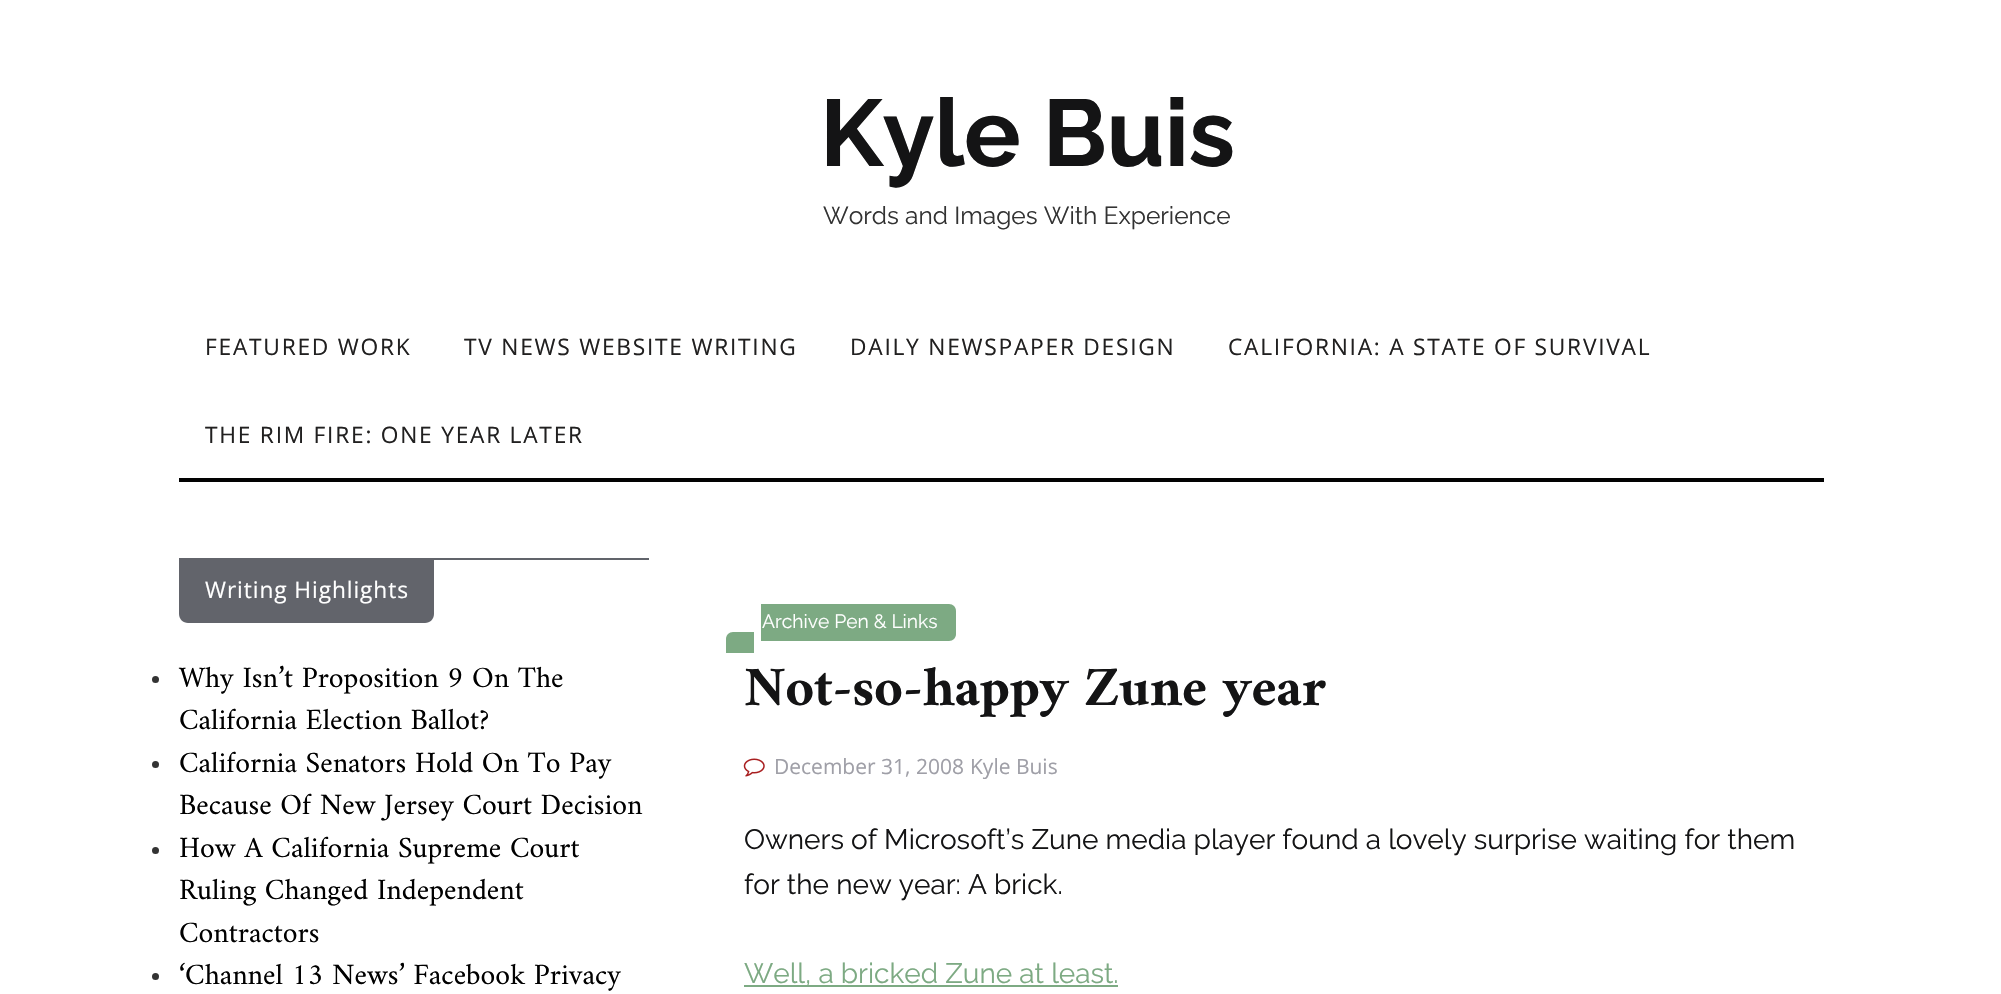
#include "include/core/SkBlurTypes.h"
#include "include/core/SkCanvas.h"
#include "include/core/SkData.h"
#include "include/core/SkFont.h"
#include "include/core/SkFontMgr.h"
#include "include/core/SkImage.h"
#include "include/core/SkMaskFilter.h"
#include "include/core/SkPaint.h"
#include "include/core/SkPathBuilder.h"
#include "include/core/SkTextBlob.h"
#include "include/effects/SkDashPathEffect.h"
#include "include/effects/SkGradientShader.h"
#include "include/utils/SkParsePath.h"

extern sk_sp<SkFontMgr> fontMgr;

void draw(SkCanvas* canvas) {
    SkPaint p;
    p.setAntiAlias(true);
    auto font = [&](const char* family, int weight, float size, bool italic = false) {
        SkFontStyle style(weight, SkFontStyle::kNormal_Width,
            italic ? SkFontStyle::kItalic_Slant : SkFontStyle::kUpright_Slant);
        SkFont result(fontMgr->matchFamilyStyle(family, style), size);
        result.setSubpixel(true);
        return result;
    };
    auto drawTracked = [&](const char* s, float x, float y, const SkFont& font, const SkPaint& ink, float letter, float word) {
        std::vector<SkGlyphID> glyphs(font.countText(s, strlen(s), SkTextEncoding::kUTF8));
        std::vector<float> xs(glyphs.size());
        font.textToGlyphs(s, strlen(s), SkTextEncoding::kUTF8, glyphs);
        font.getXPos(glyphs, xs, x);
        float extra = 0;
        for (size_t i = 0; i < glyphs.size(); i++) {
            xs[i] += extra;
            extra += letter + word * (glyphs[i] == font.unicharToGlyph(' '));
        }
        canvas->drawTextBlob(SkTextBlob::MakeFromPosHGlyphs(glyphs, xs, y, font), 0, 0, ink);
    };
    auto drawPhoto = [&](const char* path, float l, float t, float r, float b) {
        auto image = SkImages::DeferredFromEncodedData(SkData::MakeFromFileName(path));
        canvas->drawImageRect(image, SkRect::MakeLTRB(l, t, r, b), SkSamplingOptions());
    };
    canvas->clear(0xFFFFFFFF);
    auto font1 = font("Raleway", 700, 94.5f);
    p.setColor(0xFF141415);
    drawTracked("Kyle Buis", 820, 166, font1, p, -0.35f, 0);
    auto font2 = font("Raleway", 400, 24.5f);
    p.setColor(0xFF333333);
    canvas->drawString("Words and Images With Experience", 823, 224, font2, p);
    p.setColor(0xFF020202);
    canvas->drawRect(SkRect::MakeLTRB(179, 478, 1824, 482), p);
    auto font3 = font("Open Sans", 400, 22.75f);
    p.setColor(0xFF212020);
    {
        const struct { const char* s; float x, y; } items[] = {
            {"FEATURED WORK", 205, 355},
            {"TV NEWS WEBSITE WRITING", 464, 355},
            {"DAILY NEWSPAPER DESIGN", 850, 355},
            {"CALIFORNIA: A STATE OF SURVIVAL", 1228, 355},
            {"THE RIM FIRE: ONE YEAR LATER", 205, 443},
        };
        for (auto [s, x, y] : items) {
            drawTracked(s, x, y, font3, p, 1.75f, 0);
        }
    }
    p.setColor(0xFF61646B);
    canvas->drawRect(SkRect::MakeLTRB(434, 558, 649, 560), p);
    p.setColor(0xFF62646B);
    canvas->drawPath(SkPathBuilder().moveTo(179, 558).lineTo(434, 558).lineTo(434, 614).cubicTo(434, 619, 430, 623, 425, 623).lineTo(188, 623).cubicTo(183, 623, 179, 619, 179, 614).close().detach(), p);
    p.setColor(0xFFFFFFFF);
    drawTracked("Writing Highlights", 205, 598, font3, p, 0.9f, 0);
    p.setColor(0xFF333333);
    canvas->drawCircle(155.5f, 679.5f, 3.5f, p);
    auto font4 = font("Amiri", 400, 29.75f);
    p.setColor(0xFF000000);
    canvas->drawString("Why Isn’t Proposition 9 On The", 179, 687, font4, p);
    canvas->drawString("California Election Ballot?", 179, 729, font4, p);
    p.setColor(0xFF333333);
    canvas->drawCircle(155.5f, 764.5f, 3.5f, p);
    p.setColor(0xFF000000);
    canvas->drawString("California Senators Hold On To Pay", 179, 772, font4, p);
    canvas->drawString("Because Of New Jersey Court Decision", 179, 814, font4, p);
    p.setColor(0xFF333333);
    canvas->drawCircle(155.5f, 850.5f, 3.5f, p);
    p.setColor(0xFF000000);
    {
        const struct { const char* s; float x, y; } items[] = {
            {"How A California Supreme Court", 179, 857},
            {"Ruling Changed Independent", 179, 899},
            {"Contractors", 179, 942},
        };
        for (auto [s, x, y] : items) {
            canvas->drawString(s, x, y, font4, p);
        }
    }
    p.setColor(0xFF333333);
    canvas->drawCircle(155.5f, 976.5f, 3.5f, p);
    p.setColor(0xFF000000);
    canvas->drawString("‘Channel 13 News’ Facebook Privacy", 179, 984, font4, p);
    p.setColor(0xFF7DAA83);
    canvas->drawRect(SkRect::MakeLTRB(761, 604, 835, 641), p);
    canvas->drawPath(SkPathBuilder().moveTo(835, 604).lineTo(949, 604).cubicTo(953, 604, 956, 607, 956, 611).lineTo(956, 634).cubicTo(956, 638, 953, 641, 949, 641).lineTo(835, 641).close().detach(), p);
    auto font5 = font("Raleway", 400, 19.25f);
    p.setColor(0xFFFFFFFF);
    canvas->drawString("Archive Pen & Links", 762, 628, font5, p);
    p.setColor(0xFF7DAA83);
    canvas->drawPath(SkPathBuilder().moveTo(733, 632).lineTo(754, 632).lineTo(754, 653).lineTo(726, 653).lineTo(726, 639).cubicTo(726, 635, 729, 632, 733, 632).close().detach(), p);
    auto font6 = font("Amiri", 700, 56);
    p.setColor(0xFF141415);
    drawTracked("Not-so-happy Zune year", 744, 705, font6, p, -0.35f, 0);
    drawPhoto("media/1.png", 743, 758, 765, 777);
    auto font7 = font("Open Sans", 400, 21);
    p.setColor(0xFF9F9FA7);
    canvas->drawString("December 31, 2008", 774, 774, font7, p);
    canvas->drawString("Kyle Buis", 970, 774, font7, p);
    auto font8 = font("Raleway", 400, 28);
    p.setColor(0xFF141415);
    canvas->drawString("Owners of Microsoft’s Zune media player found a lovely surprise waiting for them", 744, 849, font8, p);
    canvas->drawString("for the new year: A brick.", 744, 894, font8, p);
    p.setColor(0xFF7DAA83);
    canvas->drawRect(SkRect::MakeLTRB(744, 985, 1118, 987), p);
    canvas->drawString("Well, a bricked Zune at least.", 744, 983, font8, p);
}
